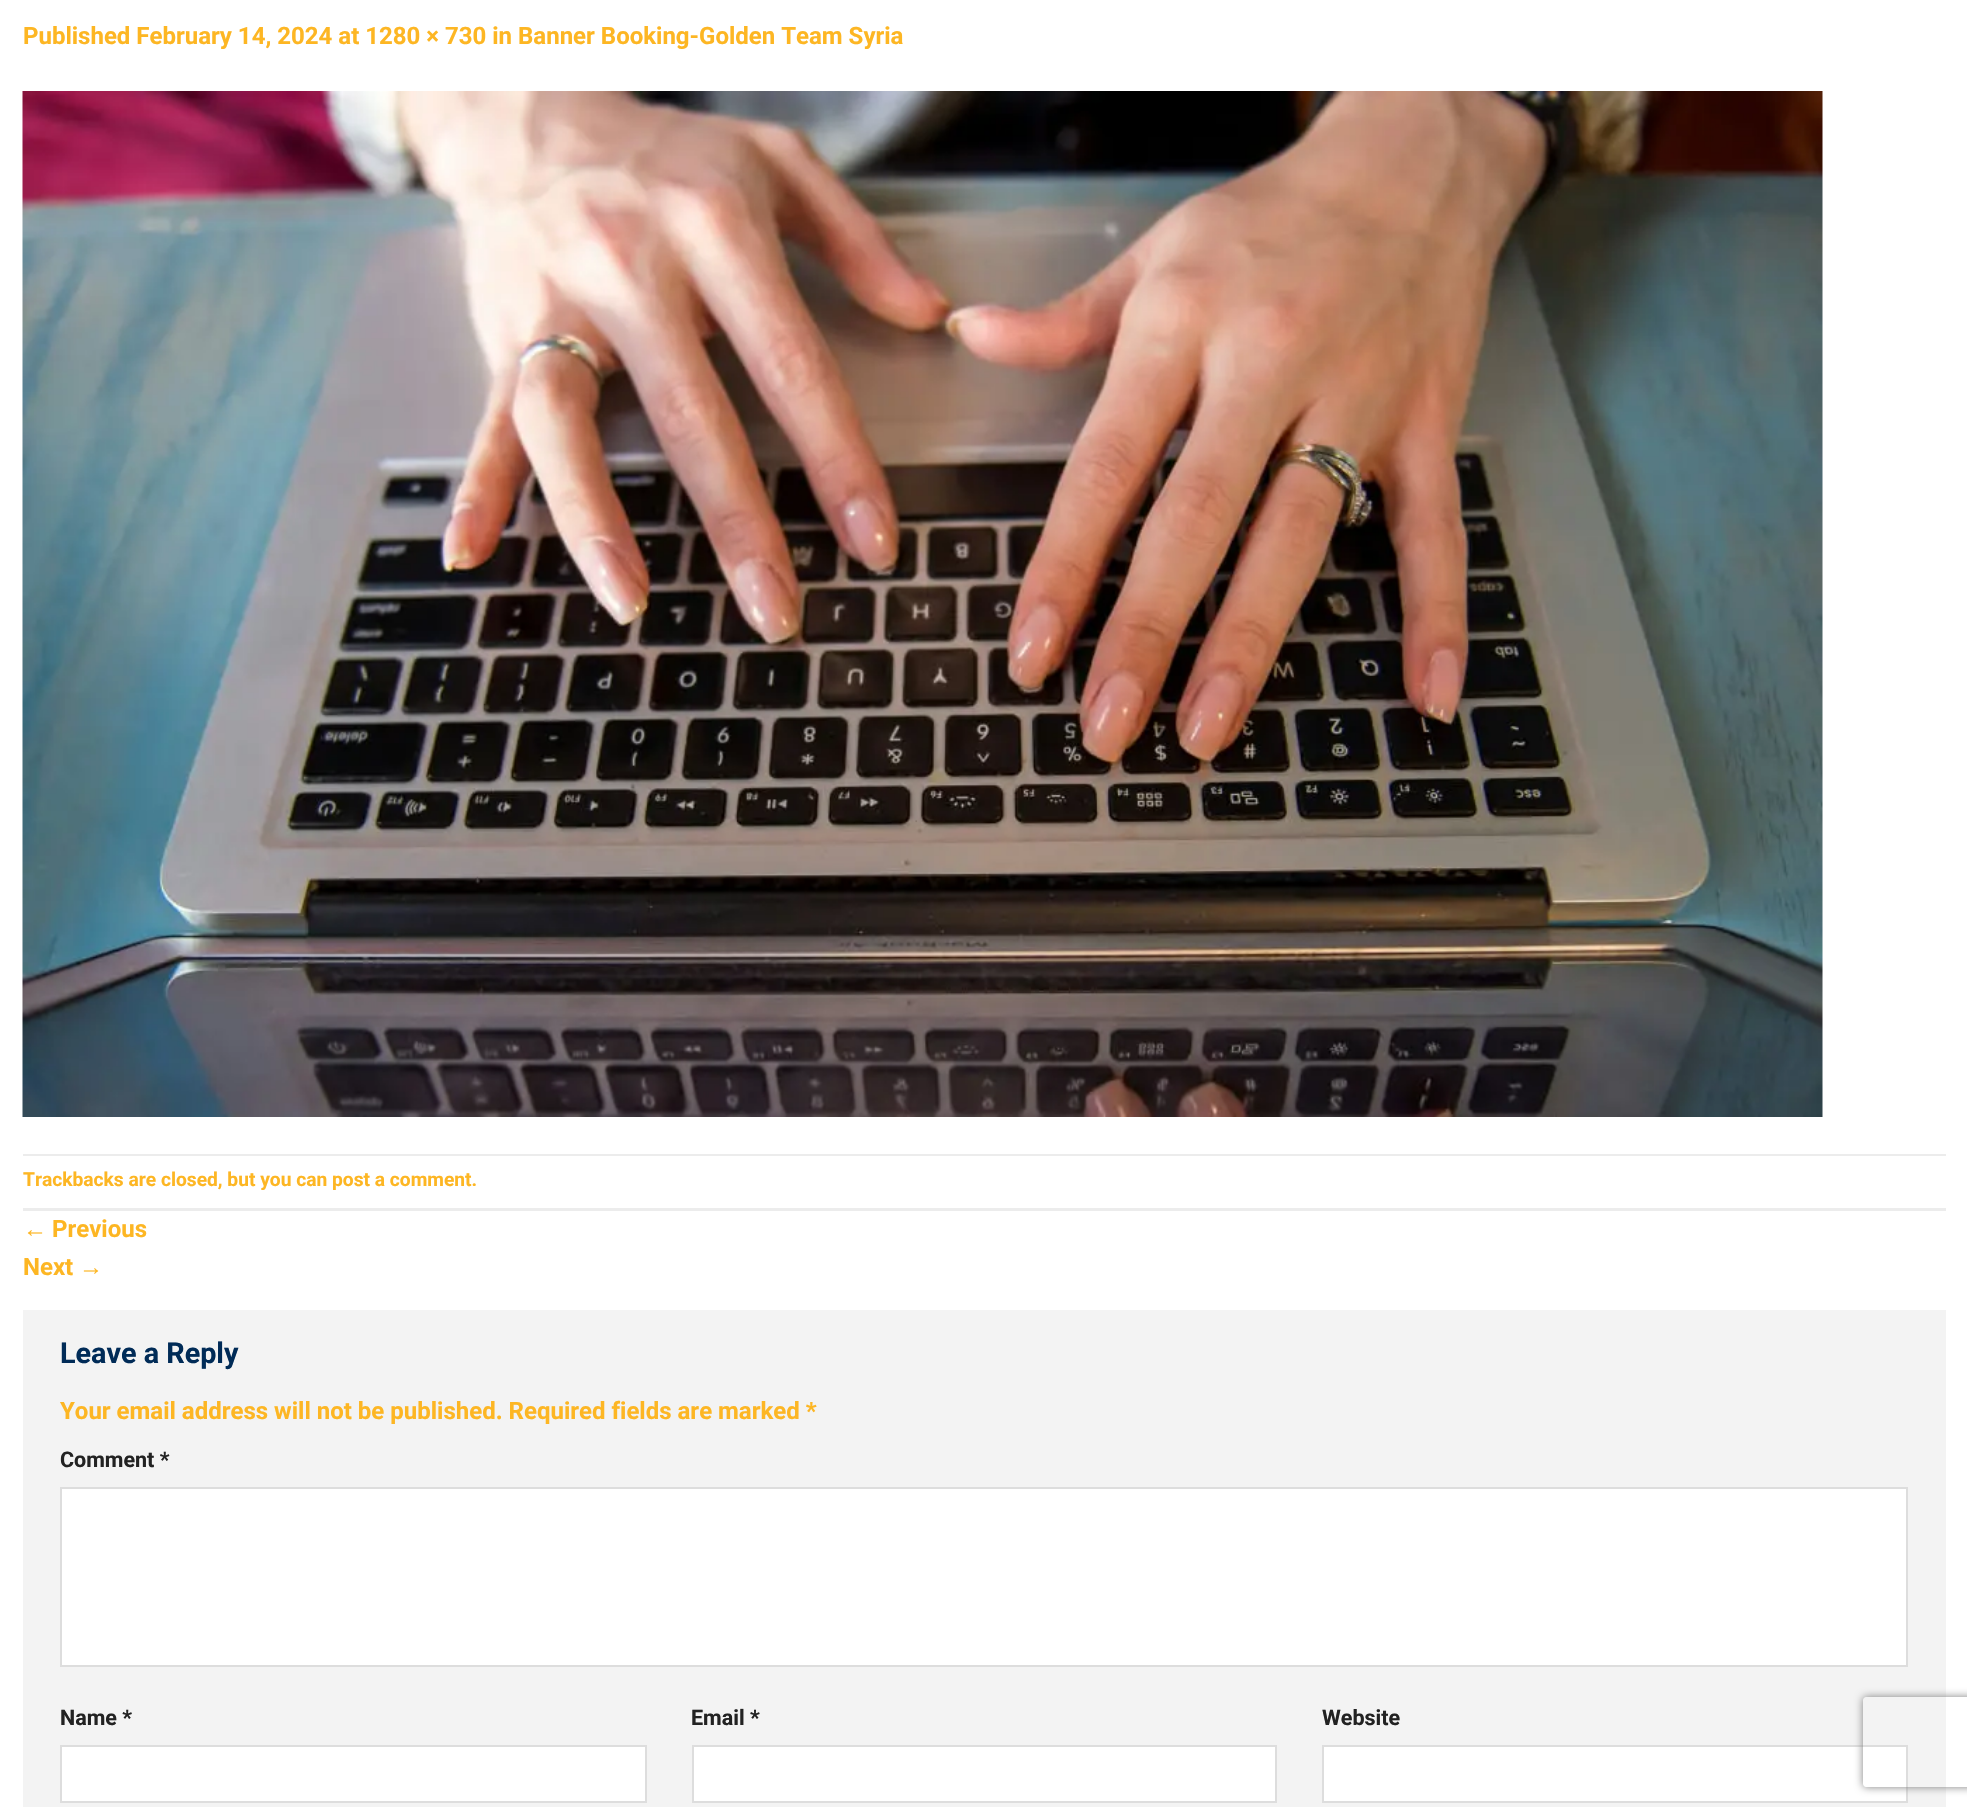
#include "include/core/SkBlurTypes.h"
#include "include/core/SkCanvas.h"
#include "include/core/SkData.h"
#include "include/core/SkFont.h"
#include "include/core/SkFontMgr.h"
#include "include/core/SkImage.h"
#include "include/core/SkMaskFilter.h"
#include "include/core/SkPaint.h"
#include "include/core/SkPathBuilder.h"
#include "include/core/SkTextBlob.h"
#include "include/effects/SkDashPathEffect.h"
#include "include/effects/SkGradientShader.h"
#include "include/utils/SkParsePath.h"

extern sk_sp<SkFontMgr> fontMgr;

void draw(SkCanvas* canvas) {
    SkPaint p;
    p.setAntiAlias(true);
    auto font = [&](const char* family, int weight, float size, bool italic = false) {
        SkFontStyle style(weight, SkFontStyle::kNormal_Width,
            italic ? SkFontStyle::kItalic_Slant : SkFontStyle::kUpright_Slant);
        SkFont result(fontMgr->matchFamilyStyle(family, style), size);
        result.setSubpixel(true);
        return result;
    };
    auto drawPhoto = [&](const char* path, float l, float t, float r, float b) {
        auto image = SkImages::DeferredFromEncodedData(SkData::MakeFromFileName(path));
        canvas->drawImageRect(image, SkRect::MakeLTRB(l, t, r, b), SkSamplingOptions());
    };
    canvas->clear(0xFFFFFFFF);
    auto font1 = font("Roboto", 700, 24);
    p.setColor(0xFFFDB623);
    canvas->drawString("Published February 14, 2024 at 1280 × 730 in Banner Booking-Golden Team Syria", 23, 44, font1, p);
    drawPhoto("media/1.png", 22, 91, 1823, 1117);
    p.setColor(0xFFECECEC);
    canvas->drawRect(SkRect::MakeLTRB(23, 1154, 1946, 1156), p);
    canvas->drawRect(SkRect::MakeLTRB(23, 1208, 1946, 1211), p);
    auto font2 = font("Roboto", 700, 19.2f);
    p.setColor(0xFFFDB623);
    canvas->drawString("Trackbacks are closed, but you can post a comment.", 23, 1186, font2, p);
    auto font3 = font("Liberation Sans", 400, 24);
    canvas->drawString("←", 23, 1237, font3, p);
    canvas->drawString("Previous", 52, 1237, font1, p);
    canvas->drawString("Next", 23, 1275, font1, p);
    canvas->drawString("→", 79, 1275, font3, p);
    p.setColor(0xFFF3F3F3);
    canvas->drawRect(SkRect::MakeLTRB(23, 1310, 1946, 1807), p);
    auto font4 = font("Roboto", 700, 28.75f);
    p.setColor(0xFF002B57);
    canvas->drawString("Leave a Reply", 60, 1363, font4, p);
    p.setColor(0xFFFDB623);
    canvas->drawString("Your email address will not be published. Required fields are marked *", 60, 1419, font1, p);
    auto font5 = font("Roboto", 700, 21.5f);
    p.setColor(0xFF222222);
    canvas->drawString("Comment *", 60, 1467, font5, p);
    p.setColor(0xFFFFFFFF);
    canvas->drawRect(SkRect::MakeLTRB(61, 1488, 1907, 1666), p);
    p.setStyle(SkPaint::kStroke_Style);
    p.setStrokeWidth(2);
    p.setColor(0xFFDDDDDD);
    canvas->drawRect(SkRect::MakeLTRB(61, 1488, 1907, 1666), p);
    p.setStyle(SkPaint::kFill_Style);
    p.setColor(0xFF222222);
    canvas->drawString("Name *", 60, 1725, font5, p);
    p.setColor(0xFFFFFFFF);
    canvas->drawRect(SkRect::MakeLTRB(61, 1746, 646, 1802), p);
    p.setStyle(SkPaint::kStroke_Style);
    p.setColor(0xFFDDDDDD);
    canvas->drawRect(SkRect::MakeLTRB(61, 1746, 646, 1802), p);
    p.setStyle(SkPaint::kFill_Style);
    p.setColor(0xFF222222);
    canvas->drawString("Email *", 691, 1725, font5, p);
    p.setColor(0xFFFFFFFF);
    canvas->drawRect(SkRect::MakeLTRB(693, 1746, 1276, 1802), p);
    p.setStyle(SkPaint::kStroke_Style);
    p.setColor(0xFFDDDDDD);
    canvas->drawRect(SkRect::MakeLTRB(693, 1746, 1276, 1802), p);
    p.setStyle(SkPaint::kFill_Style);
    p.setColor(0xFF222222);
    canvas->drawString("Website", 1322, 1725, font5, p);
    p.setColor(0xFFFFFFFF);
    canvas->drawRect(SkRect::MakeLTRB(1323, 1746, 1907, 1802), p);
    p.setStyle(SkPaint::kStroke_Style);
    p.setColor(0xFFDDDDDD);
    canvas->drawRect(SkRect::MakeLTRB(1323, 1746, 1907, 1802), p);
    canvas->save();
    canvas->clipPath(SkPathBuilder(SkPathFillType::kEvenOdd).moveTo(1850, 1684).lineTo(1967, 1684).lineTo(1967, 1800).lineTo(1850, 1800).close().moveTo(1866, 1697).lineTo(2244, 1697).cubicTo(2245.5f, 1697, 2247, 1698.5f, 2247, 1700).lineTo(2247, 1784).cubicTo(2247, 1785.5f, 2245.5f, 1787, 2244, 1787).lineTo(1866, 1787).cubicTo(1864.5f, 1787, 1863, 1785.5f, 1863, 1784).lineTo(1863, 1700).cubicTo(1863, 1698.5f, 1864.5f, 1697, 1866, 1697).close().detach(), true);
    p.setStyle(SkPaint::kFill_Style);
    p.setColor(0xFF808080);
    p.setMaskFilter(SkMaskFilter::MakeBlur(kNormal_SkBlurStyle, 4));
    canvas->drawRoundRect(SkRect::MakeLTRB(1863, 1697, 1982, 1787), 3, 3, p);
    p.setMaskFilter(nullptr);
    canvas->restore();
}
